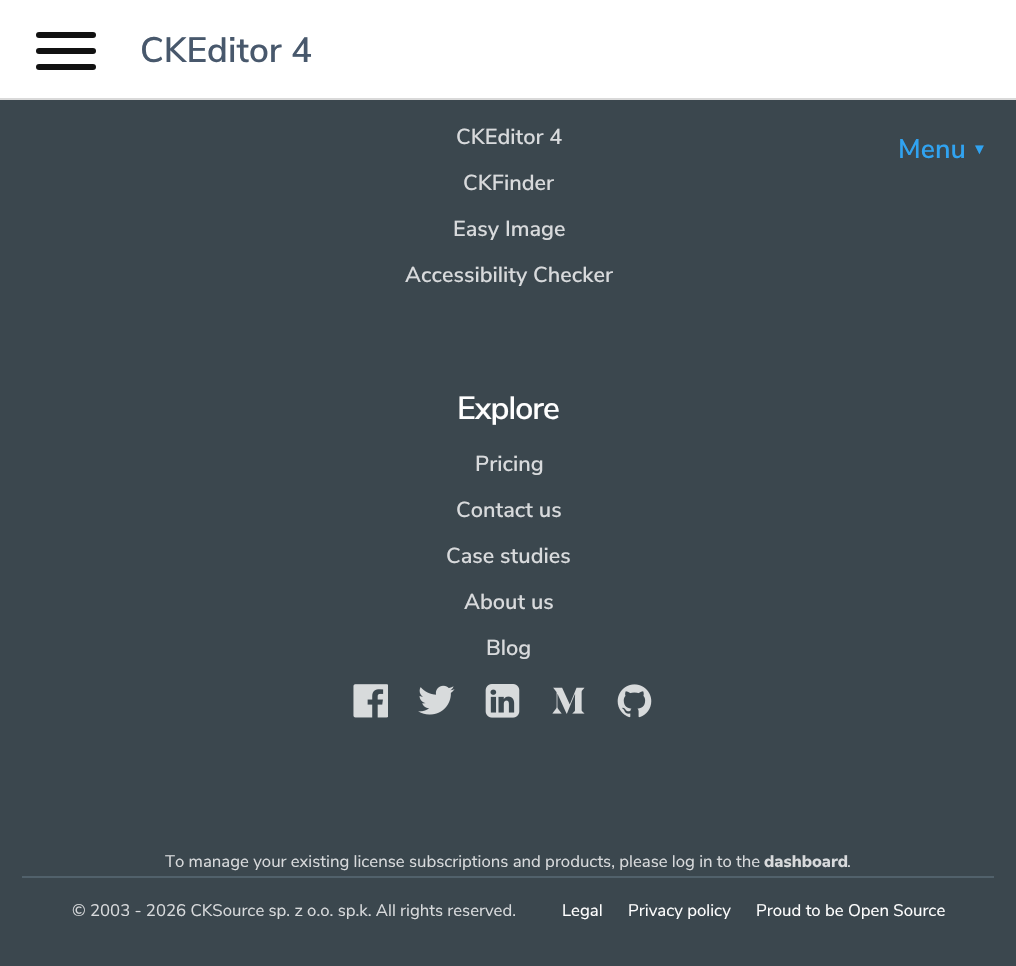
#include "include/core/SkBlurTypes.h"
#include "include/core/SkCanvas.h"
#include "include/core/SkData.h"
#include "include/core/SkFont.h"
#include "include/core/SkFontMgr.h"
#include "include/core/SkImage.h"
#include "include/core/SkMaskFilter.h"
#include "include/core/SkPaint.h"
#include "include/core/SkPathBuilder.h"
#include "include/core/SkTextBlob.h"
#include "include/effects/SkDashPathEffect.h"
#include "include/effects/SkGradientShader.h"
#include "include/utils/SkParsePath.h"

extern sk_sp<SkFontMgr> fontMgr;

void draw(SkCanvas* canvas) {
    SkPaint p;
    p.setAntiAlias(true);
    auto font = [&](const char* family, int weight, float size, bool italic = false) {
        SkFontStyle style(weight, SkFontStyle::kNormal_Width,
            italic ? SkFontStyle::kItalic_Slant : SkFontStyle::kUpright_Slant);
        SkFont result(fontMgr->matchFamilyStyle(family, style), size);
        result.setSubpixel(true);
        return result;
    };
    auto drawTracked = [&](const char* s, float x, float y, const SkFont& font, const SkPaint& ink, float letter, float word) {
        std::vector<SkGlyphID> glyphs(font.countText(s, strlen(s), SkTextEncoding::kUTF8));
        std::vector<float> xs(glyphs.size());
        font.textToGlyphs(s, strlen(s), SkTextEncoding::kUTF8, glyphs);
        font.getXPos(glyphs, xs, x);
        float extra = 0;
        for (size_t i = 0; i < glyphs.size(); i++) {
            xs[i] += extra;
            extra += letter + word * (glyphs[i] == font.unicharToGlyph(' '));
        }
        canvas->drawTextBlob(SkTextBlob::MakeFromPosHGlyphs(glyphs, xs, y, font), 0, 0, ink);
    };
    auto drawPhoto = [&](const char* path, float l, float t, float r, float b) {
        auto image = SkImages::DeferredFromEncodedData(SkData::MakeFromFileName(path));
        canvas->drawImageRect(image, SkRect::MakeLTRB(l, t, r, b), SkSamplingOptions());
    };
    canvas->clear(0xFF3B474E);
    p.setColor(0xFFFFFFFF);
    canvas->drawRect(SkRect::MakeLTRB(0, 0, 1016, 98), p);
    p.setColor(0xFF111111);
    canvas->drawRoundRect(SkRect::MakeLTRB(36, 32, 96, 38), 3, 3, p);
    canvas->drawRoundRect(SkRect::MakeLTRB(36, 48, 96, 54), 3, 3, p);
    canvas->drawRoundRect(SkRect::MakeLTRB(36, 64, 96, 70), 3, 3, p);
    p.setColor(0xFFD9D9D9);
    canvas->drawRect(SkRect::MakeLTRB(0, 98, 1016, 100), p);
    auto font1 = font("Nunito Sans", 600, 35.25f);
    p.setColor(0xFF48586C);
    canvas->drawString("CKEditor 4", 140, 62, font1, p);
    auto font2 = font("Nunito Sans", 600, 27);
    p.setColor(0xFF30A3F1);
    canvas->drawString("Menu", 898, 158, font2, p);
    auto font3 = font("Liberation Sans", 700, 15);
    canvas->drawString("▼", 972, 154, font3, p);
    auto font4 = font("Nunito Sans", 600, 21.75f);
    p.setColor(0xFFD8DADC);
    {
        const struct { const char* s; float x, y; } items[] = {
            {"CKEditor 4", 456, 144},
            {"CKFinder", 463, 190},
            {"Easy Image", 453, 236},
            {"Accessibility Checker", 405, 282},
        };
        for (auto [s, x, y] : items) {
            canvas->drawString(s, x, y, font4, p);
        }
    }
    auto font5 = font("Nunito Sans", 600, 32);
    p.setColor(0xFFFFFFFF);
    drawTracked("Explore", 457, 419, font5, p, -1, 0);
    p.setColor(0xFFD8DADC);
    {
        const struct { const char* s; float x, y; } items[] = {
            {"Pricing", 475, 471},
            {"Contact us", 456, 517},
            {"Case studies", 446, 563},
            {"About us", 464, 609},
            {"Blog", 486, 655},
        };
        for (auto [s, x, y] : items) {
            canvas->drawString(s, x, y, font4, p);
        }
    }
    drawPhoto("media/1.png", 353, 684, 388, 718);
    drawPhoto("media/2.png", 418, 685, 455, 715);
    drawPhoto("media/3.png", 485, 684, 520, 718);
    drawPhoto("media/4.png", 552, 687, 585, 714);
    drawPhoto("media/5.png", 617, 684, 652, 718);
    p.setColor(0xFF51616B);
    canvas->drawRect(SkRect::MakeLTRB(22, 876, 994, 878), p);
    auto font6 = font("Nunito Sans", 400, 16.8f);
    p.setColor(0xFFD8DADC);
    drawTracked("To manage your existing license subscriptions and products, please log in to the", 165, 867, font6, p, 0, -0.1f);
    auto font7 = font("Nunito Sans", 800, 16.8f);
    canvas->drawString("dashboard", 764, 867, font7, p);
    canvas->drawString(".", 847, 867, font6, p);
    drawTracked("© 2003 - 2026 CKSource sp. z o.o. sp.k. All rights reserved.", 72, 916, font6, p, 0, -0.1f);
    p.setColor(0xFFFFFFFF);
    {
        const struct { const char* s; float x, y; } items[] = {
            {"Legal", 562, 916},
            {"Privacy policy", 628, 916},
            {"Proud to be Open Source", 756, 916},
        };
        for (auto [s, x, y] : items) {
            canvas->drawString(s, x, y, font6, p);
        }
    }
}
